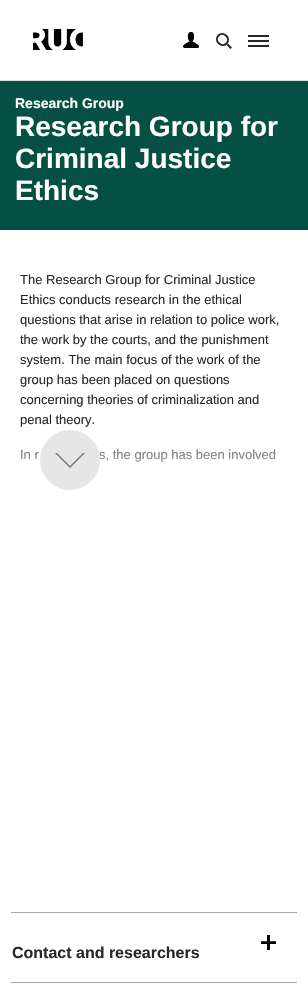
#include "include/core/SkBlurTypes.h"
#include "include/core/SkCanvas.h"
#include "include/core/SkData.h"
#include "include/core/SkFont.h"
#include "include/core/SkFontMgr.h"
#include "include/core/SkImage.h"
#include "include/core/SkMaskFilter.h"
#include "include/core/SkPaint.h"
#include "include/core/SkPathBuilder.h"
#include "include/core/SkTextBlob.h"
#include "include/effects/SkDashPathEffect.h"
#include "include/effects/SkGradientShader.h"
#include "include/utils/SkParsePath.h"

extern sk_sp<SkFontMgr> fontMgr;

void draw(SkCanvas* canvas) {
    SkPaint p;
    p.setAntiAlias(true);
    auto font = [&](const char* family, int weight, float size, bool italic = false) {
        SkFontStyle style(weight, SkFontStyle::kNormal_Width,
            italic ? SkFontStyle::kItalic_Slant : SkFontStyle::kUpright_Slant);
        SkFont result(fontMgr->matchFamilyStyle(family, style), size);
        result.setSubpixel(true);
        return result;
    };
    auto drawPhoto = [&](const char* path, float l, float t, float r, float b) {
        auto image = SkImages::DeferredFromEncodedData(SkData::MakeFromFileName(path));
        canvas->drawImageRect(image, SkRect::MakeLTRB(l, t, r, b), SkSamplingOptions());
    };
    canvas->clear(0xFFFFFFFF);
    p.setColor(0xFFDCDCDC);
    canvas->drawRect(SkRect::MakeLTRB(0, 80, 308, 81), p);
    drawPhoto("media/1.png", 33, 29, 83, 50);
    drawPhoto("media/2.png", 183, 32, 199, 48);
    p.setStyle(SkPaint::kStroke_Style);
    p.setStrokeWidth(2);
    p.setColor(0xFF282828);
    canvas->drawPath(SkPathBuilder().moveTo(218.5f, 35.5f).cubicTo(223.5f, 30.5f, 231.5f, 38.5f, 226.5f, 43.5f).cubicTo(221.5f, 48.5f, 213.5f, 40.5f, 218.5f, 35.5f).close().detach(), p);
    p.setStyle(SkPaint::kFill_Style);
    canvas->drawPath(SkPathBuilder().moveTo(226.5f, 45).lineTo(228, 43.5f).lineTo(232, 47.5f).lineTo(230.5f, 49).close().detach(), p);
    {
        const struct { float l, t, r, b; SkColor color; } items[] = {
            {248, 35, 269, 37, 0xFF282828},
            {248, 45, 269, 47, 0xFF282828},
            {248, 40, 269, 42, 0xFF282828},
            {0, 81, 308, 230, 0xFF064F44},
        };
        for (auto [l, t, r, b, color] : items) {
            p.setColor(color);
            canvas->drawRect(SkRect::MakeLTRB(l, t, r, b), p);
        }
    }
    auto font1 = font("Liberation Sans", 700, 14);
    p.setColor(0xFFFEFEFE);
    canvas->drawString("Research Group", 15, 108, font1, p);
    auto font2 = font("Liberation Sans", 700, 28);
    {
        const struct { const char* s; float x, y; } items[] = {
            {"Research Group for", 15, 136},
            {"Criminal Justice", 15, 168},
            {"Ethics", 15, 200},
        };
        for (auto [s, x, y] : items) {
            canvas->drawString(s, x, y, font2, p);
        }
    }
    auto font3 = font("Liberation Sans", 400, 13);
    p.setColor(0xFF282828);
    {
        const struct { const char* s; float x, y; } items[] = {
            {"The Research Group for Criminal Justice", 20, 284},
            {"Ethics conducts research in the ethical", 20, 304},
            {"questions that arise in relation to police work,", 20, 324},
            {"the work by the courts, and the punishment", 20, 344},
            {"system. The main focus of the work of the", 20, 364},
            {"group has been placed on questions", 20, 384},
            {"concerning theories of criminalization and", 20, 404},
            {"penal theory.", 20, 424},
            {"In r", 20, 459},
            {"s, the group has been involved", 99, 459},
        };
        for (auto [s, x, y] : items) {
            canvas->drawString(s, x, y, font3, p);
        }
    }
    {
        const SkColor colors[] = {0x00FFFFFF, 0xFFFFFFFF};
        const float stops[] = {0, 1};
        const SkPoint ends[] = {{154, 430}, {154, 490}};
        p.setShader(SkGradientShader::MakeLinear(ends, colors, stops, 2, SkTileMode::kClamp));
        p.setAlpha(255);
    }
    canvas->drawRect(SkRect::MakeLTRB(21, 449, 276, 462), p);
    p.setShader(nullptr);
    p.setColor(0xFFE6E6E6);
    canvas->drawCircle(70, 460, 30, p);
    p.setColor(0xFF757575);
    canvas->drawPath(SkPathBuilder().moveTo(55, 453).lineTo(85, 453).lineTo(70, 468).close().detach(), p);
    p.setColor(0xFFE6E6E6);
    canvas->drawPath(SkPathBuilder().moveTo(55, 451).lineTo(85, 451).lineTo(70, 466).close().detach(), p);
    p.setColor(0xFFA8A8A8);
    canvas->drawRect(SkRect::MakeLTRB(11, 912, 297, 913), p);
    canvas->drawRect(SkRect::MakeLTRB(11, 982, 297, 983), p);
    drawPhoto("media/3.png", 261, 935, 276, 950);
    auto font4 = font("Liberation Sans", 700, 16);
    p.setColor(0xFF282828);
    canvas->drawString("Contact and researchers", 12, 958, font4, p);
}
